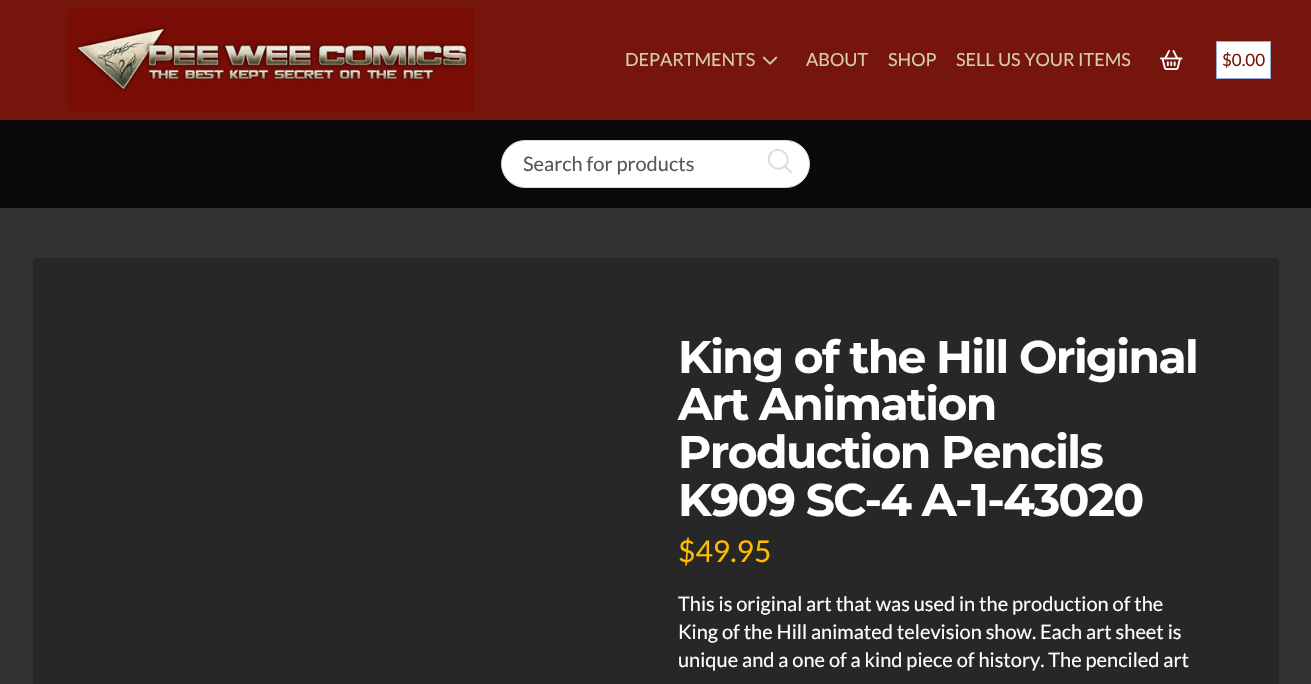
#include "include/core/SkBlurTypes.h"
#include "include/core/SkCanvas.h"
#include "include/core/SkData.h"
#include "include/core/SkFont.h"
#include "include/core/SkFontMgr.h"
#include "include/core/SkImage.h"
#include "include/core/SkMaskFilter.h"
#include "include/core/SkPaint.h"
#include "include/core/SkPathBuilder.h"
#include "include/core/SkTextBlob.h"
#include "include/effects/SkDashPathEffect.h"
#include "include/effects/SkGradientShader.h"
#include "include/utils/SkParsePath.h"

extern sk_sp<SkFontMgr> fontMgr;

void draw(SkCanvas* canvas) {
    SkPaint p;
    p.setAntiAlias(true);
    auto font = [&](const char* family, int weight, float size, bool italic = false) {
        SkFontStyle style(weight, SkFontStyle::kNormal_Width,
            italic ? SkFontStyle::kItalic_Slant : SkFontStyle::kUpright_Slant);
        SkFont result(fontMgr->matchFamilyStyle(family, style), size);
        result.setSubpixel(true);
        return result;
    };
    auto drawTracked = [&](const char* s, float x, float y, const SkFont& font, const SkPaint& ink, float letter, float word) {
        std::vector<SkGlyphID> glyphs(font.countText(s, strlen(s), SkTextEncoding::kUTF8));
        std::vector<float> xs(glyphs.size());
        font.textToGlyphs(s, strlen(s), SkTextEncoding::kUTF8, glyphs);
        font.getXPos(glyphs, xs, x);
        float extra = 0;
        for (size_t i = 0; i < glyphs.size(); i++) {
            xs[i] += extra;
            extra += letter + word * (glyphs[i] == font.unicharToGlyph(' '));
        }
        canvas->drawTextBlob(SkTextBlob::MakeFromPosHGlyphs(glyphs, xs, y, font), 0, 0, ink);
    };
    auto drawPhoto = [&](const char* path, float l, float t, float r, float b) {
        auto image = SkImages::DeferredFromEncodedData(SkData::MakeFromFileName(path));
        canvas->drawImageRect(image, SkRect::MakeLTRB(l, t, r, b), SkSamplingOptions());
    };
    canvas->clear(0xFF323232);
    p.setColor(0xFF76150B);
    canvas->drawRect(SkRect::MakeLTRB(0, 0, 1311, 120), p);
    drawPhoto("media/1.png", 67, 9, 474, 111);
    auto font1 = font("Lato", 400, 18);
    p.setColor(0xFFD4CCB0);
    canvas->drawString("DEPARTMENTS", 625, 66, font1, p);
    drawPhoto("media/2.png", 762, 56, 778, 65);
    {
        const struct { const char* s; float x, y; } items[] = {
            {"ABOUT", 806, 66},
            {"SHOP", 888, 66},
            {"SELL US YOUR ITEMS", 956, 66},
        };
        for (auto [s, x, y] : items) {
            canvas->drawString(s, x, y, font1, p);
        }
    }
    drawPhoto("media/3.png", 1160, 50, 1183, 70);
    p.setColor(0xFFFFFFFF);
    canvas->drawRect(SkRect::MakeLTRB(1216.5f, 41.5f, 1270.5f, 78.5f), p);
    p.setStyle(SkPaint::kStroke_Style);
    p.setStrokeWidth(1);
    p.setColor(0xFF91ADD5);
    canvas->drawRect(SkRect::MakeLTRB(1216.5f, 41.5f, 1270.5f, 78.5f), p);
    auto font2 = font("Lato", 400, 17);
    p.setStyle(SkPaint::kFill_Style);
    p.setColor(0xFF76150B);
    canvas->drawString("$0.00", 1222, 66, font2, p);
    p.setColor(0xFF090909);
    canvas->drawRect(SkRect::MakeLTRB(0, 120, 1311, 208), p);
    p.setColor(0xFFFFFFFF);
    canvas->drawRoundRect(SkRect::MakeLTRB(501.5f, 140.5f, 809.5f, 187.5f), 23.5f, 23.5f, p);
    p.setStyle(SkPaint::kStroke_Style);
    p.setColor(0xFFD8D8D8);
    canvas->drawRoundRect(SkRect::MakeLTRB(501.5f, 140.5f, 809.5f, 187.5f), 23.5f, 23.5f, p);
    auto font3 = font("Lato", 400, 20);
    p.setStyle(SkPaint::kFill_Style);
    p.setColor(0xFF575757);
    canvas->drawString("Search for products", 523, 171, font3, p);
    p.setStyle(SkPaint::kStroke_Style);
    p.setStrokeWidth(1.9f);
    p.setStrokeCap(SkPaint::kRound_Cap);
    p.setStrokeJoin(SkPaint::kRound_Join);
    p.setColor(0xFFDCDCDC);
    canvas->drawPath(SkPathBuilder().moveTo(791, 172.5f).lineTo(785, 166).moveTo(785, 166).cubicTo(793.5f, 157.5f, 780, 144, 771.5f, 152.5f).cubicTo(763, 161.5f, 776, 174.5f, 785, 166).close().detach(), p);
    p.setStyle(SkPaint::kFill_Style);
    p.setColor(0xFF272727);
    canvas->drawRoundRect(SkRect::MakeLTRB(33, 258, 1279, 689), 5, 5, p);
    auto font4 = font("Montserrat", 700, 45.6f);
    p.setColor(0xFFFFFFFF);
    {
        const struct { const char* s; float x, y; } items[] = {
            {"King of the Hill Original", 678, 373},
            {"Art Animation", 678, 420},
            {"Production Pencils", 678, 468},
            {"K909 SC-4 A-1-43020", 678, 516},
        };
        for (auto [s, x, y] : items) {
            drawTracked(s, x, y, font4, p, -1.6f, 0);
        }
    }
    auto font5 = font("Lato", 400, 30);
    p.setColor(0xFFFFBC00);
    canvas->drawString("$49.95", 678, 562, font5, p);
    p.setColor(0xFFFFFFFF);
    {
        const struct { const char* s; float x, y; } items[] = {
            {"This is original art that was used in the production of the", 678, 611},
            {"King of the Hill animated television show. Each art sheet is", 678, 639},
            {"unique and a one of a kind piece of history. The penciled art", 678, 667},
        };
        for (auto [s, x, y] : items) {
            canvas->drawString(s, x, y, font3, p);
        }
    }
}
